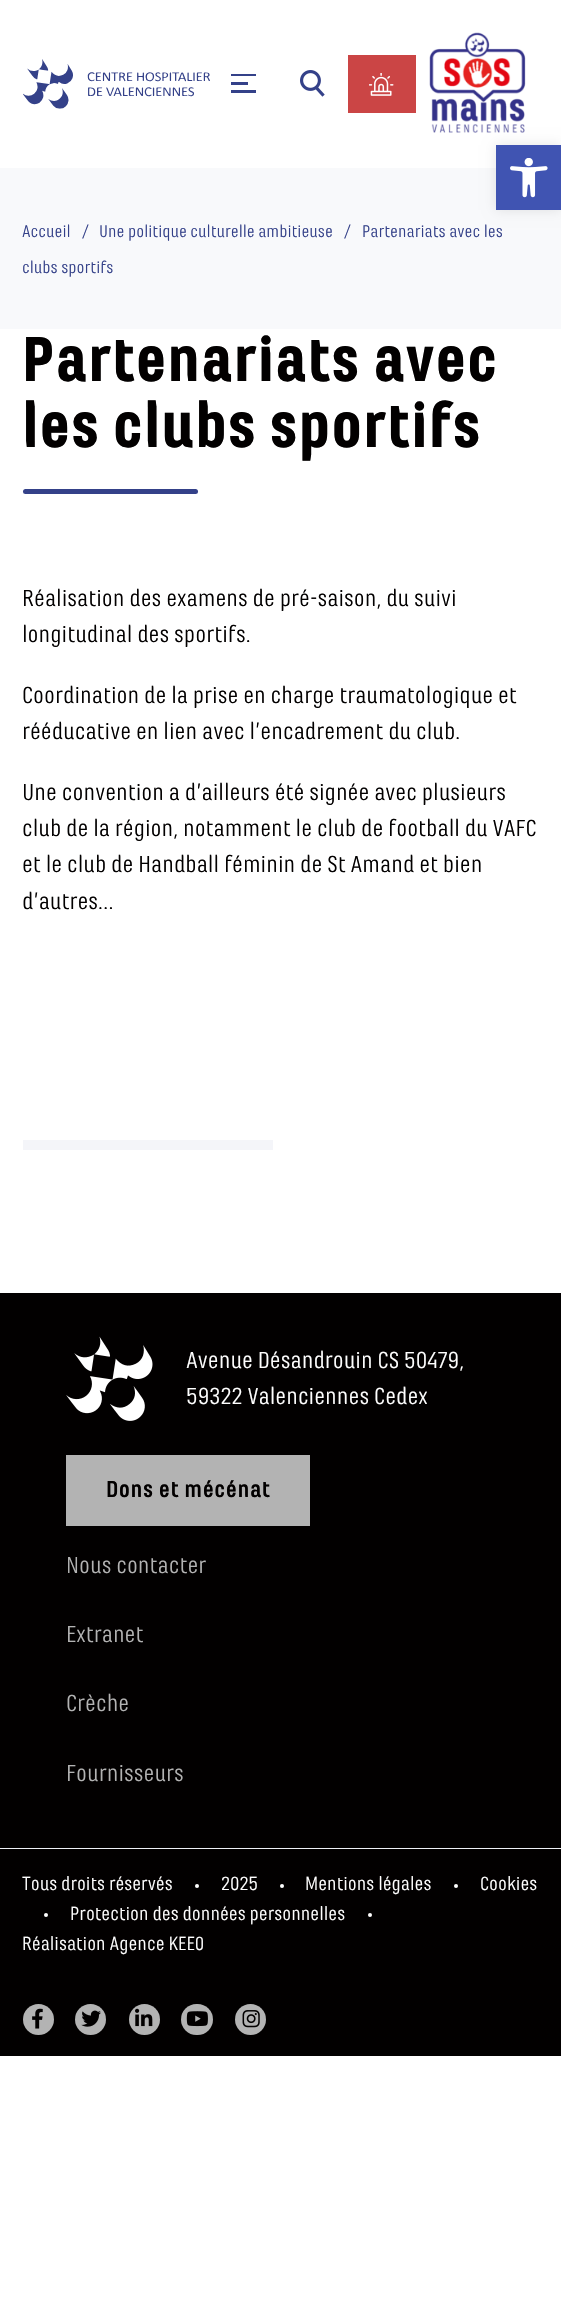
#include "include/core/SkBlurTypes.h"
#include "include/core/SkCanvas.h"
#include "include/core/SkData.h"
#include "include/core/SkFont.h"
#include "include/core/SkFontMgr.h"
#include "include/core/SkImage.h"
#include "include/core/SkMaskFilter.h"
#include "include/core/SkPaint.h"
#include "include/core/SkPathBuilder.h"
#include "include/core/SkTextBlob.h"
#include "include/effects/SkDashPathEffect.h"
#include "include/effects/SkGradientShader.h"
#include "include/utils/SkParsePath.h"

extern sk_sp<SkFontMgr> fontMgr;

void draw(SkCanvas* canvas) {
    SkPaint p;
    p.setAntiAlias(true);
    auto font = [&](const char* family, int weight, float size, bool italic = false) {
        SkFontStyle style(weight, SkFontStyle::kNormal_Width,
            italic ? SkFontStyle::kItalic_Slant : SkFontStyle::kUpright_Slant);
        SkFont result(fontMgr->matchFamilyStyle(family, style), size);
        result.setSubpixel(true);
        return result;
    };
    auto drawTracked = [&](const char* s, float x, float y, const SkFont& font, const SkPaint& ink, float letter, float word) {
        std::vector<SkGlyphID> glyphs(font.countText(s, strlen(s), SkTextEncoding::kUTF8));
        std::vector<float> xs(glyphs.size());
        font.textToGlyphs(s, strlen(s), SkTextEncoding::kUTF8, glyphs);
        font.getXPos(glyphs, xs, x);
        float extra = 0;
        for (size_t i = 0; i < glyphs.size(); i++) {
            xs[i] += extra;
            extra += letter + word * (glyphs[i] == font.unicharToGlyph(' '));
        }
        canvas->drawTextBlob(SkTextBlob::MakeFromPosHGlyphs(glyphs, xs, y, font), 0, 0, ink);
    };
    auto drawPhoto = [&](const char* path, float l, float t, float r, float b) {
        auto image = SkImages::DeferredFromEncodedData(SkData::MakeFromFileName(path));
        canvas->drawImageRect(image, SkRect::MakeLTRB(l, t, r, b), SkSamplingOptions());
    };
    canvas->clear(0xFFFFFFFF);
    drawPhoto("media/5.png", 429, 32, 526, 133);
    p.setColor(0xFFF8F9FB);
    canvas->drawRect(SkRect::MakeLTRB(0, 168, 561, 329), p);
    p.setColor(0x1A000000);
    p.setMaskFilter(SkMaskFilter::MakeBlur(kNormal_SkBlurStyle, 6));
    canvas->drawRect(SkRect::MakeLTRB(496, 145, 561, 210), p);
    p.setMaskFilter(nullptr);
    p.setColor(0xFF4054B2);
    canvas->drawRect(SkRect::MakeLTRB(496, 145, 561, 210), p);
    drawPhoto("media/1.png", 510, 158, 548, 198);
    drawPhoto("media/2.png", 23, 59, 210, 109);
    {
        const struct { float l, t, r, b; SkColor color; } items[] = {
            {231, 74, 256, 76, 0xFF344189},
            {231, 82, 248, 85, 0xFF344189},
            {231, 90, 256, 93, 0xFF344189},
        };
        for (auto [l, t, r, b, color] : items) {
            p.setColor(color);
            canvas->drawRect(SkRect::MakeLTRB(l, t, r, b), p);
        }
    }
    drawPhoto("media/3.png", 300, 70, 325, 97);
    p.setColor(0xFFCB4545);
    canvas->drawRect(SkRect::MakeLTRB(348, 55, 416, 113), p);
    drawPhoto("media/4.png", 369, 73, 394, 96);
    auto font1 = font("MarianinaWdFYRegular", 400, 17.6f);
    p.setColor(0xFF344189);
    {
        const struct { const char* s; float x, y; } items[] = {
            {"Accueil", 22, 237},
            {"/", 82, 237},
            {"Une politique culturelle ambitieuse", 99, 237},
            {"/", 344, 237},
            {"Partenariats avec les", 362, 237},
            {"clubs sportifs", 22, 273},
        };
        for (auto [s, x, y] : items) {
            canvas->drawString(s, x, y, font1, p);
        }
    }
    auto font2 = font("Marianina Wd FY", 900, 66);
    p.setColor(0xFF020000);
    drawTracked("Partenariats avec", 22, 381, font2, p, 0.75f, 0);
    drawTracked("les clubs sportifs", 22, 447, font2, p, 0.75f, 0);
    p.setColor(0xFF344189);
    canvas->drawRoundRect(SkRect::MakeLTRB(23, 489, 198, 494), 2.5f, 2.5f, p);
    auto font3 = font("MarianinaWdFYRegular", 400, 24.2f);
    p.setColor(0xFF020000);
    {
        const struct { const char* s; float x, y; } items[] = {
            {"Réalisation des examens de pré-saison, du suivi", 22, 606},
            {"longitudinal des sportifs.", 22, 642},
            {"Coordination de la prise en charge traumatologique et", 22, 703},
            {"rééducative en lien avec l’encadrement du club.", 22, 739},
            {"Une convention a d’ailleurs été signée avec plusieurs", 22, 800},
            {"club de la région, notamment le club de football du VAFC", 22, 836},
            {"et le club de Handball féminin de St Amand et bien", 22, 872},
            {"d’autres…", 22, 909},
        };
        for (auto [s, x, y] : items) {
            canvas->drawString(s, x, y, font3, p);
        }
    }
    p.setColor(0xFFF4F5F9);
    canvas->drawRect(SkRect::MakeLTRB(23, 1140, 273, 1150), p);
    p.setColor(0xFF020000);
    canvas->drawRect(SkRect::MakeLTRB(0, 1293, 561, 1848), p);
    drawPhoto("media/6.png", 66, 1336, 153, 1421);
    p.setColor(0xFFFFFFFF);
    canvas->drawString("Avenue Désandrouin CS 50479,", 186, 1368, font3, p);
    canvas->drawString("59322 Valenciennes Cedex", 186, 1404, font3, p);
    p.setColor(0xFFB3B3B3);
    canvas->drawRect(SkRect::MakeLTRB(66, 1455, 310, 1526), p);
    auto font4 = font("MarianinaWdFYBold", 700, 24.2f);
    p.setColor(0xFF020000);
    drawTracked("Dons et mécénat", 106, 1497, font4, p, 0.5f, 0);
    p.setColor(0xFFB3B3B3);
    {
        const struct { const char* s; float x, y; } items[] = {
            {"Nous contacter", 66, 1573},
            {"Extranet", 66, 1642},
            {"Crèche", 66, 1711},
            {"Fournisseurs", 66, 1781},
        };
        for (auto [s, x, y] : items) {
            canvas->drawString(s, x, y, font3, p);
        }
    }
    p.setColor(0xFF020000);
    canvas->drawRect(SkRect::MakeLTRB(0, 1849, 561, 2056), p);
    p.setColor(0xFFEDEFF5);
    canvas->drawRect(SkRect::MakeLTRB(0, 1848, 561, 1849), p);
    auto font5 = font("MarianinaWdFYRegular", 400, 19.75f);
    p.setColor(0xFFFFFFFF);
    canvas->drawString("Tous droits réservés", 22, 1890, font5, p);
    canvas->drawCircle(197, 1886, 2, p);
    canvas->drawString("2025", 221, 1890, font5, p);
    canvas->drawCircle(282, 1886, 2, p);
    canvas->drawString("Mentions légales", 305, 1890, font5, p);
    canvas->drawCircle(456, 1886, 2, p);
    canvas->drawString("Cookies", 480, 1890, font5, p);
    canvas->drawCircle(46, 1915, 2, p);
    canvas->drawString("Protection des données personnelles", 70, 1920, font5, p);
    canvas->drawCircle(370, 1915, 2, p);
    canvas->drawString("Réalisation Agence KEEO", 22, 1950, font5, p);
    p.setColor(0xFFB3B3B3);
    canvas->drawCircle(38.5f, 2019.5f, 15.5f, p);
    drawPhoto("media/7.png", 32, 2008, 43, 2029);
    canvas->drawCircle(90.5f, 2019.5f, 15.5f, p);
    drawPhoto("media/8.png", 81, 2010, 101, 2027);
    canvas->drawCircle(144.5f, 2019.5f, 15.5f, p);
    drawPhoto("media/9.png", 135, 2008, 153, 2027);
    canvas->drawRoundRect(SkRect::MakeLTRB(181, 2004, 213, 2035), 15.5f, 15.5f, p);
    drawPhoto("media/10.png", 186, 2011, 208, 2027);
    canvas->drawCircle(250.5f, 2019.5f, 15.5f, p);
    drawPhoto("media/11.png", 242, 2010, 260, 2028);
}
